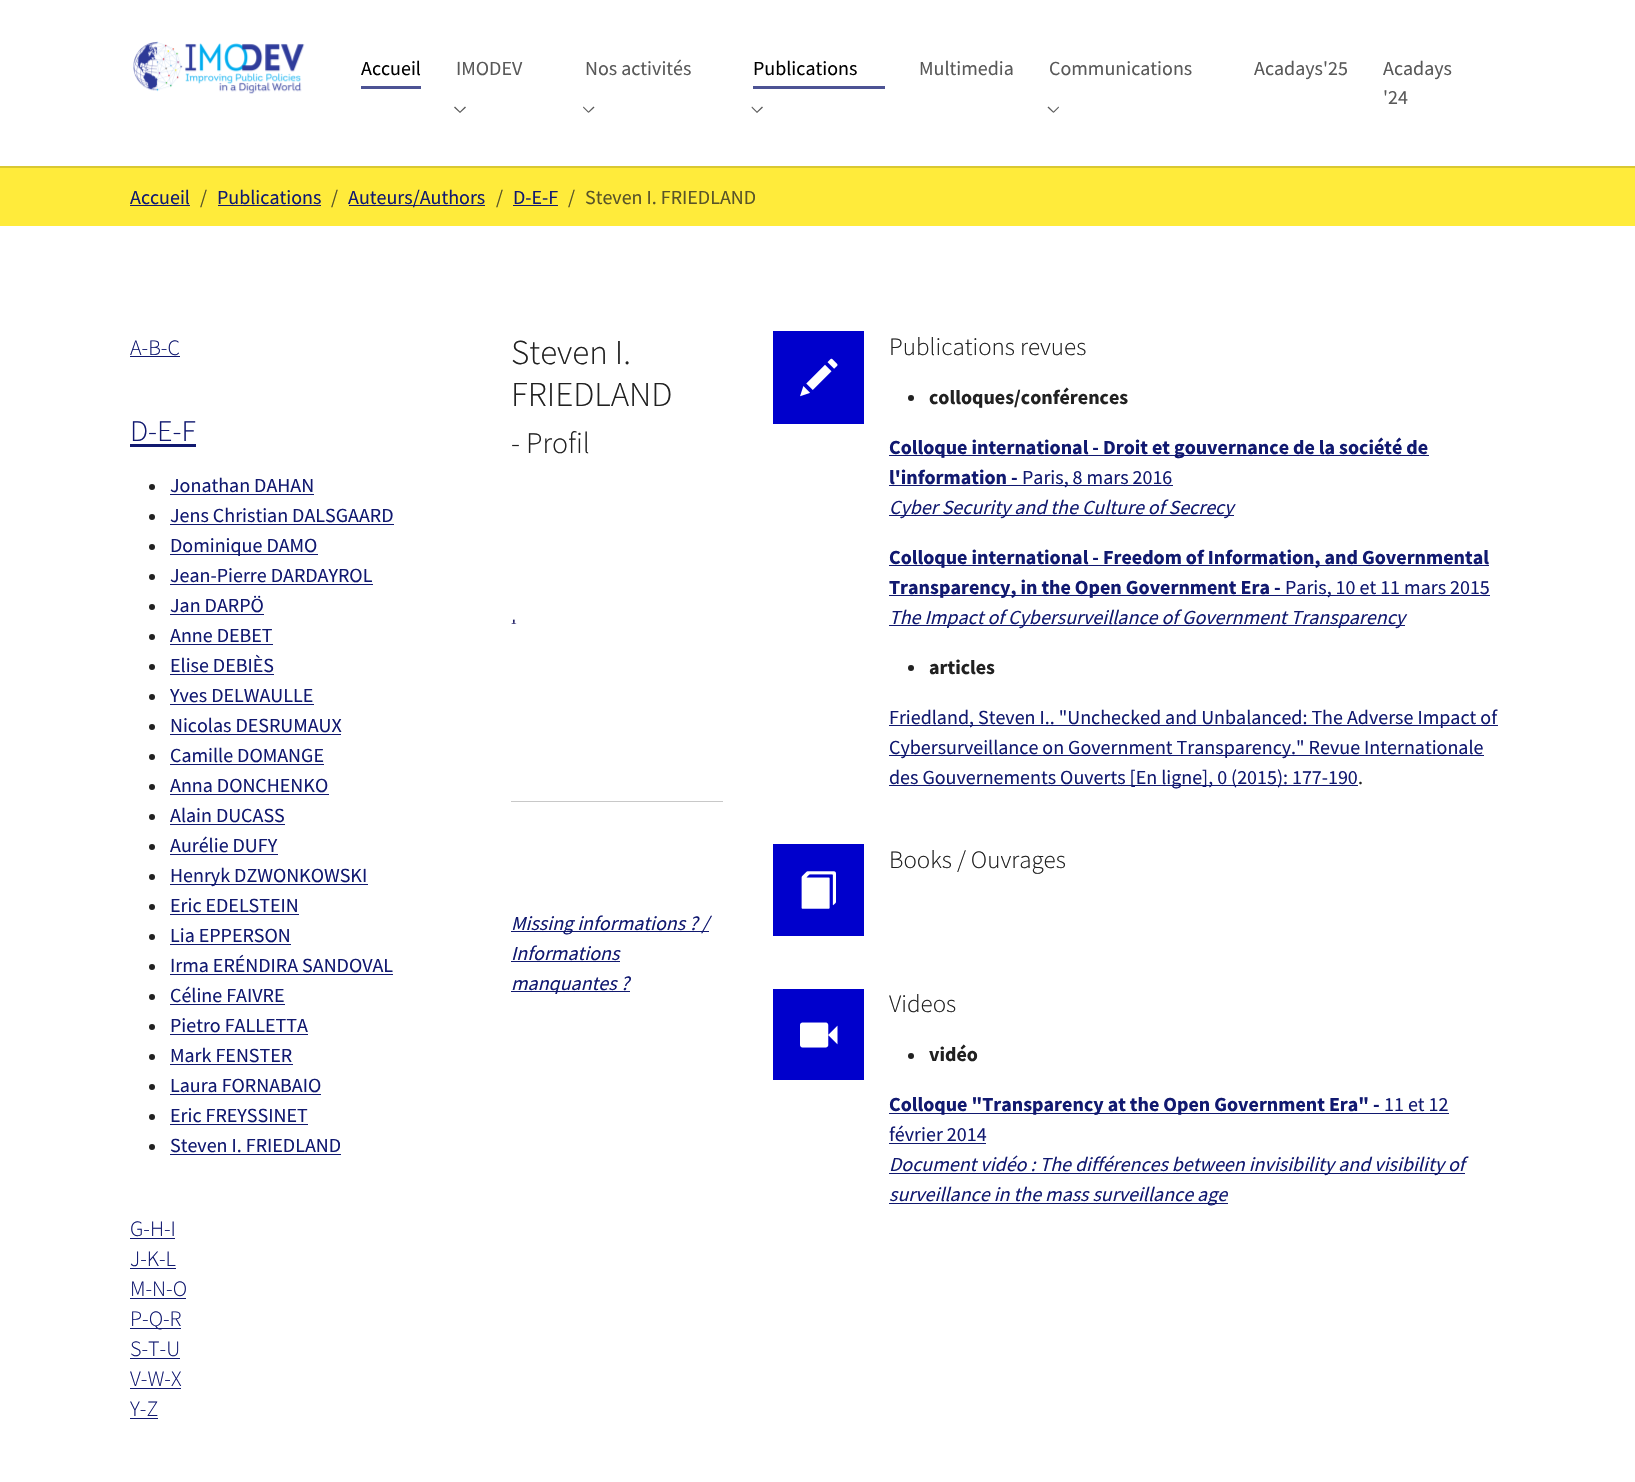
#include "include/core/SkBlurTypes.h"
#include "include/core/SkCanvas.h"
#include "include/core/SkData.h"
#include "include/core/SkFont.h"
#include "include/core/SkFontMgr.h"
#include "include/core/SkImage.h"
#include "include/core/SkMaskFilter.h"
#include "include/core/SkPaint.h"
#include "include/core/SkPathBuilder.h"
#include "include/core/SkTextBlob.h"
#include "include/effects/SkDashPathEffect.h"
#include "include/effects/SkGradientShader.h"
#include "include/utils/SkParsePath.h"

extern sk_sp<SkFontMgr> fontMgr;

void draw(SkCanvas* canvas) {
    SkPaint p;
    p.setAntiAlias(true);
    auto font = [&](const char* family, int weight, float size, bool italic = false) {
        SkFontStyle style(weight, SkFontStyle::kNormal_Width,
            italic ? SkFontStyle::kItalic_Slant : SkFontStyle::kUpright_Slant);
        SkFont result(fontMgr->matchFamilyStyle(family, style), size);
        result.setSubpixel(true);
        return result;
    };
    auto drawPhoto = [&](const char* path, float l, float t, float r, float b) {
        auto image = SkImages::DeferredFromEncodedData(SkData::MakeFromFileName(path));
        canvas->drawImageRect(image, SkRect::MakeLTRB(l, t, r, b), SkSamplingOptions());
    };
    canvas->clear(0xFFFFFFFF);
    p.setColor(0xFFD9C832);
    canvas->drawRect(SkRect::MakeLTRB(0, 166, 1635, 168), p);
    drawPhoto("media/1.png", 133, 41, 305, 94);
    auto font1 = font("Source Sans Pro", 400, 20);
    p.setColor(0xFF000000);
    canvas->drawString("Accueil", 361, 75, font1, p);
    p.setColor(0xFF4D5394);
    canvas->drawRect(SkRect::MakeLTRB(361, 86, 421, 89), p);
    p.setColor(0xFF595959);
    canvas->drawString("IMODEV", 456, 75, font1, p);
    canvas->drawPath(SkPathBuilder().moveTo(460, 113).lineTo(454, 107.5f).lineTo(455, 106.5f).lineTo(460, 111.5f).close().moveTo(466, 107.5f).lineTo(460, 113).lineTo(460, 111.5f).lineTo(465, 106.5f).close().detach(), p);
    canvas->drawString("Nos activités", 585, 75, font1, p);
    canvas->drawPath(SkPathBuilder().moveTo(588.5f, 113).lineTo(583, 107.5f).lineTo(583.5f, 106.5f).lineTo(588.5f, 111.5f).close().detach(), p);
    canvas->drawPath(SkPathBuilder().moveTo(594.5f, 107.5f).lineTo(588.5f, 113).lineTo(588.5f, 111.5f).lineTo(593.5f, 106.5f).close().detach(), p);
    p.setColor(0xFF000000);
    canvas->drawString("Publications", 753, 75, font1, p);
    p.setColor(0xFF4D5394);
    canvas->drawRect(SkRect::MakeLTRB(753, 86, 885, 89), p);
    p.setColor(0xFF595959);
    canvas->drawPath(SkPathBuilder().moveTo(757, 113).lineTo(751.5f, 107.5f).lineTo(752, 106.5f).lineTo(757, 111.5f).close().moveTo(763, 107.5f).lineTo(757, 113).lineTo(757, 111.5f).lineTo(762, 106.5f).close().detach(), p);
    canvas->drawString("Multimedia", 919, 75, font1, p);
    canvas->drawString("Communications", 1049, 75, font1, p);
    canvas->drawPath(SkPathBuilder().moveTo(1053.5f, 113).lineTo(1047.5f, 107.5f).lineTo(1048.5f, 106.5f).lineTo(1053.5f, 111.5f).close().detach(), p);
    canvas->drawPath(SkPathBuilder().moveTo(1059, 107.5f).lineTo(1053.5f, 113).lineTo(1053.5f, 111.5f).lineTo(1058.5f, 106.5f).close().detach(), p);
    {
        const struct { const char* s; float x, y; } items[] = {
            {"Acadays'25", 1254, 75},
            {"Acadays", 1383, 75},
            {"'24", 1383, 104},
        };
        for (auto [s, x, y] : items) {
            canvas->drawString(s, x, y, font1, p);
        }
    }
    p.setColor(0xFFFFEB3B);
    canvas->drawRect(SkRect::MakeLTRB(0, 168, 1635, 226), p);
    p.setColor(0xFF111970);
    canvas->drawString("Accueil", 130, 204, font1, p);
    canvas->drawRect(SkRect::MakeLTRB(130, 205, 190, 206), p);
    p.setColor(0xFF595428);
    canvas->drawString("/", 200, 204, font1, p);
    p.setColor(0xFF111970);
    canvas->drawString("Publications", 217, 204, font1, p);
    canvas->drawRect(SkRect::MakeLTRB(218, 205, 321, 206), p);
    p.setColor(0xFF595428);
    canvas->drawString("/", 331, 204, font1, p);
    p.setColor(0xFF111970);
    canvas->drawRect(SkRect::MakeLTRB(349, 205, 485, 206), p);
    canvas->drawString("Auteurs/Authors", 348, 204, font1, p);
    p.setColor(0xFF595428);
    canvas->drawString("/", 496, 204, font1, p);
    p.setColor(0xFF111970);
    canvas->drawString("D-E-F", 513, 204, font1, p);
    canvas->drawRect(SkRect::MakeLTRB(513, 205, 558, 206), p);
    p.setColor(0xFF595428);
    canvas->drawString("/", 568, 204, font1, p);
    canvas->drawString("Steven I. FRIEDLAND", 585, 204, font1, p);
    auto font2 = font("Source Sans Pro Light", 300, 22);
    p.setColor(0xFF111970);
    canvas->drawString("A-B-C", 130, 355, font2, p);
    canvas->drawRect(SkRect::MakeLTRB(130, 356, 180, 357), p);
    auto font3 = font("Source Sans Pro Light", 300, 30);
    canvas->drawString("D-E-F", 130, 441, font3, p);
    canvas->drawRect(SkRect::MakeLTRB(130, 444, 196, 447), p);
    p.setColor(0xFF212121);
    canvas->drawCircle(152, 487, 3, p);
    p.setColor(0xFF111970);
    canvas->drawString("Jonathan DAHAN", 170, 492, font1, p);
    canvas->drawRect(SkRect::MakeLTRB(170, 494, 314, 495), p);
    p.setColor(0xFF212121);
    canvas->drawCircle(152, 517, 3, p);
    p.setColor(0xFF111970);
    canvas->drawString("Jens Christian DALSGAARD", 170, 522, font1, p);
    canvas->drawRect(SkRect::MakeLTRB(170, 524, 394, 525), p);
    p.setColor(0xFF212121);
    canvas->drawCircle(152, 547, 3, p);
    p.setColor(0xFF111970);
    canvas->drawRect(SkRect::MakeLTRB(170, 554, 318, 555), p);
    canvas->drawString("Dominique DAMO", 170, 552, font1, p);
    p.setColor(0xFF212121);
    canvas->drawCircle(152, 577, 3, p);
    p.setColor(0xFF111970);
    canvas->drawString("Jean-Pierre DARDAYROL", 170, 582, font1, p);
    canvas->drawRect(SkRect::MakeLTRB(170, 584, 373, 585), p);
    p.setColor(0xFF212121);
    canvas->drawCircle(152, 607, 3, p);
    p.setColor(0xFF111970);
    canvas->drawString("Jan DARPÖ", 170, 612, font1, p);
    canvas->drawRect(SkRect::MakeLTRB(170, 614, 264, 615), p);
    p.setColor(0xFF212121);
    canvas->drawCircle(152, 637, 3, p);
    p.setColor(0xFF111970);
    canvas->drawString("Anne DEBET", 170, 642, font1, p);
    canvas->drawRect(SkRect::MakeLTRB(170, 644, 273, 645), p);
    p.setColor(0xFF212121);
    canvas->drawCircle(152, 667, 3, p);
    p.setColor(0xFF111970);
    canvas->drawString("Elise DEBIÈS", 170, 672, font1, p);
    canvas->drawRect(SkRect::MakeLTRB(170, 674, 274, 675), p);
    p.setColor(0xFF212121);
    canvas->drawCircle(152, 697, 3, p);
    p.setColor(0xFF111970);
    canvas->drawString("Yves DELWAULLE", 170, 702, font1, p);
    canvas->drawRect(SkRect::MakeLTRB(170, 704, 314, 705), p);
    p.setColor(0xFF212121);
    canvas->drawCircle(152, 727, 3, p);
    p.setColor(0xFF111970);
    canvas->drawString("Nicolas DESRUMAUX", 170, 732, font1, p);
    canvas->drawRect(SkRect::MakeLTRB(170, 734, 341, 735), p);
    p.setColor(0xFF212121);
    canvas->drawCircle(152, 757, 3, p);
    p.setColor(0xFF111970);
    canvas->drawString("Camille DOMANGE", 170, 762, font1, p);
    canvas->drawRect(SkRect::MakeLTRB(170, 764, 324, 765), p);
    p.setColor(0xFF212121);
    canvas->drawCircle(152, 787, 3, p);
    p.setColor(0xFF111970);
    canvas->drawString("Anna DONCHENKO", 170, 792, font1, p);
    canvas->drawRect(SkRect::MakeLTRB(170, 794, 329, 795), p);
    p.setColor(0xFF212121);
    canvas->drawCircle(152, 817, 3, p);
    p.setColor(0xFF111970);
    canvas->drawString("Alain DUCASS", 170, 822, font1, p);
    canvas->drawRect(SkRect::MakeLTRB(170, 824, 285, 825), p);
    p.setColor(0xFF212121);
    canvas->drawCircle(152, 847, 3, p);
    p.setColor(0xFF111970);
    canvas->drawString("Aurélie DUFY", 170, 852, font1, p);
    canvas->drawRect(SkRect::MakeLTRB(170, 854, 278, 855), p);
    p.setColor(0xFF212121);
    canvas->drawCircle(152, 877, 3, p);
    p.setColor(0xFF111970);
    canvas->drawRect(SkRect::MakeLTRB(170, 884, 368, 885), p);
    canvas->drawString("Henryk DZWONKOWSKI", 170, 882, font1, p);
    p.setColor(0xFF212121);
    canvas->drawCircle(152, 907, 3, p);
    p.setColor(0xFF111970);
    canvas->drawString("Eric EDELSTEIN", 170, 912, font1, p);
    canvas->drawRect(SkRect::MakeLTRB(170, 914, 299, 915), p);
    p.setColor(0xFF212121);
    canvas->drawCircle(152, 937, 3, p);
    p.setColor(0xFF111970);
    canvas->drawString("Lia EPPERSON", 170, 942, font1, p);
    canvas->drawRect(SkRect::MakeLTRB(170, 944, 291, 945), p);
    p.setColor(0xFF212121);
    canvas->drawCircle(152, 967, 3, p);
    p.setColor(0xFF111970);
    canvas->drawString("Irma ERÉNDIRA SANDOVAL", 170, 972, font1, p);
    canvas->drawRect(SkRect::MakeLTRB(170, 974, 393, 975), p);
    p.setColor(0xFF212121);
    canvas->drawCircle(152, 997, 3, p);
    p.setColor(0xFF111970);
    canvas->drawString("Céline FAIVRE", 170, 1002, font1, p);
    canvas->drawRect(SkRect::MakeLTRB(170, 1004, 285, 1005), p);
    p.setColor(0xFF212121);
    canvas->drawCircle(152, 1027, 3, p);
    p.setColor(0xFF111970);
    canvas->drawString("Pietro FALLETTA", 170, 1032, font1, p);
    canvas->drawRect(SkRect::MakeLTRB(170, 1034, 308, 1035), p);
    p.setColor(0xFF212121);
    canvas->drawCircle(152, 1057, 3, p);
    p.setColor(0xFF111970);
    canvas->drawString("Mark FENSTER", 170, 1062, font1, p);
    canvas->drawRect(SkRect::MakeLTRB(170, 1064, 293, 1065), p);
    p.setColor(0xFF212121);
    canvas->drawCircle(152, 1087, 3, p);
    p.setColor(0xFF111970);
    canvas->drawString("Laura FORNABAIO", 170, 1092, font1, p);
    canvas->drawRect(SkRect::MakeLTRB(170, 1094, 321, 1095), p);
    p.setColor(0xFF212121);
    canvas->drawCircle(152, 1117, 3, p);
    p.setColor(0xFF111970);
    canvas->drawString("Eric FREYSSINET", 170, 1122, font1, p);
    canvas->drawRect(SkRect::MakeLTRB(170, 1124, 308, 1125), p);
    p.setColor(0xFF212121);
    canvas->drawCircle(152, 1147, 3, p);
    p.setColor(0xFF111970);
    canvas->drawString("Steven I. FRIEDLAND", 170, 1152, font1, p);
    canvas->drawRect(SkRect::MakeLTRB(170, 1154, 341, 1155), p);
    canvas->drawString("G-H-I", 130, 1236, font2, p);
    canvas->drawRect(SkRect::MakeLTRB(130, 1238, 175, 1239), p);
    canvas->drawString("J-K-L", 130, 1266, font2, p);
    canvas->drawRect(SkRect::MakeLTRB(130, 1268, 176, 1269), p);
    canvas->drawString("M-N-O", 130, 1296, font2, p);
    canvas->drawRect(SkRect::MakeLTRB(130, 1298, 186, 1299), p);
    canvas->drawRect(SkRect::MakeLTRB(130, 1328, 181, 1329), p);
    canvas->drawString("P-Q-R", 130, 1326, font2, p);
    canvas->drawString("S-T-U", 130, 1356, font2, p);
    canvas->drawRect(SkRect::MakeLTRB(130, 1358, 180, 1359), p);
    canvas->drawString("V-W-X", 130, 1386, font2, p);
    canvas->drawRect(SkRect::MakeLTRB(130, 1388, 181, 1389), p);
    canvas->drawString("Y-Z", 130, 1416, font2, p);
    canvas->drawRect(SkRect::MakeLTRB(130, 1418, 158, 1419), p);
    auto font4 = font("Source Sans Pro Light", 300, 35);
    p.setColor(0xFF212121);
    canvas->drawString("Steven I.", 511, 364, font4, p);
    canvas->drawString("FRIEDLAND", 511, 406, font4, p);
    canvas->drawString("- Profil", 511, 453, font3, p);
    drawPhoto("media/2.png", 511, 619, 517, 624);
    p.setColor(0xFFC8C8C8);
    canvas->drawRect(SkRect::MakeLTRB(511, 801, 723, 802), p);
    p.setColor(0xFF111970);
    canvas->drawRect(SkRect::MakeLTRB(511, 931, 709, 932), p);
    auto font5 = font("Source Sans Pro", 400, 20, true);
    canvas->drawString("Missing informations ? /", 511, 930, font5, p);
    canvas->drawString("Informations", 511, 960, font5, p);
    canvas->drawRect(SkRect::MakeLTRB(511, 961, 620, 962), p);
    canvas->drawRect(SkRect::MakeLTRB(511, 991, 630, 992), p);
    canvas->drawString("manquantes ?", 511, 990, font5, p);
    p.setColor(0xFF0000CC);
    canvas->drawRect(SkRect::MakeLTRB(773, 331, 864, 424), p);
    drawPhoto("media/3.png", 800, 358, 838, 397);
    auto font6 = font("Source Sans Pro Light", 300, 25);
    p.setColor(0xFF212121);
    canvas->drawString("Publications revues", 889, 355, font6, p);
    canvas->drawCircle(911, 398, 3, p);
    auto font7 = font("Source Sans Pro", 700, 20);
    canvas->drawString("colloques/conférences", 929, 404, font7, p);
    p.setColor(0xFF111970);
    canvas->drawRect(SkRect::MakeLTRB(889, 455, 1429, 456), p);
    canvas->drawString("Colloque international - Droit et gouvernance de la société de", 889, 454, font7, p);
    canvas->drawString("l'information -", 889, 484, font7, p);
    canvas->drawRect(SkRect::MakeLTRB(889, 485, 1173, 486), p);
    canvas->drawString("Paris, 8 mars 2016", 1022, 484, font1, p);
    canvas->drawRect(SkRect::MakeLTRB(889, 515, 1234, 516), p);
    canvas->drawString("Cyber Security and the Culture of Secrecy", 889, 514, font5, p);
    canvas->drawRect(SkRect::MakeLTRB(889, 565, 1489, 566), p);
    canvas->drawString("Colloque international - Freedom of Information, and Governmental", 889, 564, font7, p);
    canvas->drawRect(SkRect::MakeLTRB(889, 595, 1490, 596), p);
    canvas->drawString("Transparency, in the Open Government Era -", 889, 594, font7, p);
    canvas->drawString("Paris, 10 et 11 mars 2015", 1285, 594, font1, p);
    canvas->drawRect(SkRect::MakeLTRB(889, 625, 1405, 626), p);
    canvas->drawString("The Impact of Cybersurveillance of Government Transparency", 889, 624, font5, p);
    p.setColor(0xFF212121);
    canvas->drawCircle(911, 668, 3, p);
    canvas->drawString("articles", 929, 674, font7, p);
    p.setColor(0xFF111970);
    canvas->drawRect(SkRect::MakeLTRB(889, 725, 1498, 726), p);
    canvas->drawString("Friedland, Steven I.. \"Unchecked and Unbalanced: The Adverse Impact of", 889, 724, font1, p);
    canvas->drawRect(SkRect::MakeLTRB(889, 755, 1484, 756), p);
    canvas->drawString("Cybersurveillance on Government Transparency.\" Revue Internationale", 889, 754, font1, p);
    canvas->drawRect(SkRect::MakeLTRB(889, 785, 1358, 786), p);
    canvas->drawString("des Gouvernements Ouverts [En ligne], 0 (2015): 177-190", 889, 784, font1, p);
    p.setColor(0xFF212121);
    canvas->drawString(".", 1358, 784, font1, p);
    p.setColor(0xFF0000CC);
    canvas->drawRect(SkRect::MakeLTRB(773, 844, 864, 936), p);
    drawPhoto("media/4.png", 801, 871, 836, 909);
    p.setColor(0xFF212121);
    canvas->drawString("Books / Ouvrages", 889, 868, font6, p);
    p.setColor(0xFF0000CC);
    canvas->drawRect(SkRect::MakeLTRB(773, 989, 864, 1080), p);
    drawPhoto("media/5.png", 800, 1022, 838, 1048);
    p.setColor(0xFF212121);
    canvas->drawString("Videos", 889, 1012, font6, p);
    canvas->drawCircle(911, 1056, 3, p);
    canvas->drawString("vidéo", 929, 1061, font7, p);
    p.setColor(0xFF111970);
    canvas->drawRect(SkRect::MakeLTRB(889, 1113, 1449, 1114), p);
    canvas->drawString("Colloque \"Transparency at the Open Government Era\" -", 889, 1111, font7, p);
    canvas->drawString("11 et 12", 1384, 1111, font1, p);
    canvas->drawString("février 2014", 889, 1141, font1, p);
    canvas->drawRect(SkRect::MakeLTRB(889, 1143, 986, 1144), p);
    canvas->drawRect(SkRect::MakeLTRB(889, 1173, 1465, 1174), p);
    canvas->drawString("Document vidéo : The différences between invisibility and visibility of", 889, 1171, font5, p);
    canvas->drawRect(SkRect::MakeLTRB(889, 1203, 1228, 1204), p);
    canvas->drawString("surveillance in the mass surveillance age", 889, 1201, font5, p);
}
